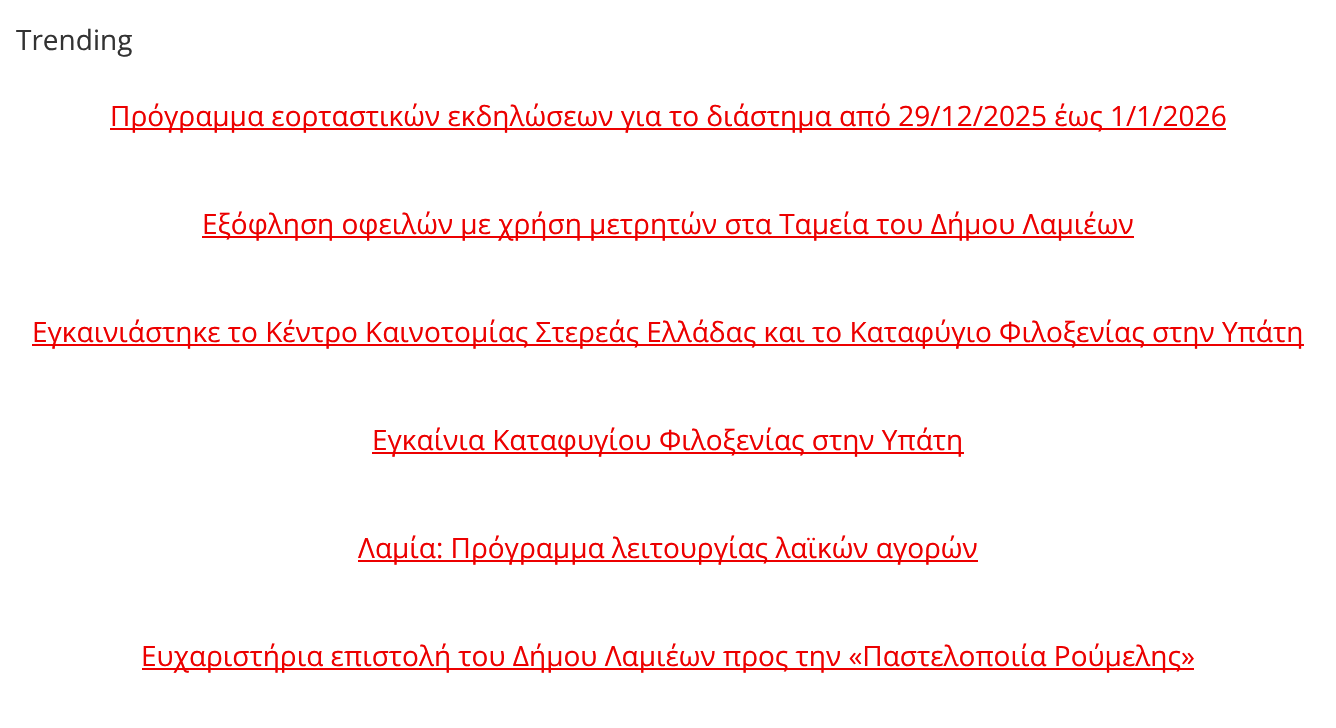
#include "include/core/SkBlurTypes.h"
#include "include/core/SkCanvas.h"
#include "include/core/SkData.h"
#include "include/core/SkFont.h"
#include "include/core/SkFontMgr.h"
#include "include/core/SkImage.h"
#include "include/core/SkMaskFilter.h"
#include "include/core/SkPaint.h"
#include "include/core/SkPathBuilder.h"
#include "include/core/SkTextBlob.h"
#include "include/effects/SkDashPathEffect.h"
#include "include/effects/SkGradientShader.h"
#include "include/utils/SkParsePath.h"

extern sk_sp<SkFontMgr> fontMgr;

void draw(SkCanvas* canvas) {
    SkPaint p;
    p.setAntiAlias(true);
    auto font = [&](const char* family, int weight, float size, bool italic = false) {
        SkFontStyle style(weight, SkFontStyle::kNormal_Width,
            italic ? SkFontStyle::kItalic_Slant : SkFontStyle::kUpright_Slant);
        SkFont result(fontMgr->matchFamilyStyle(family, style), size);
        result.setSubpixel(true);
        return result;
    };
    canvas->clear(0xFFFFFFFF);
    auto font1 = font("Open Sans", 400, 28);
    p.setColor(0xFF333333);
    canvas->drawString("Trending", 16, 50, font1, p);
    p.setColor(0xFFEC0000);
    canvas->drawRect(SkRect::MakeLTRB(110, 128, 1226, 130), p);
    canvas->drawString("Πρόγραμμα εορταστικών εκδηλώσεων για το διάστημα από 29/12/2025 έως 1/1/2026", 110, 126, font1, p);
    canvas->drawRect(SkRect::MakeLTRB(202, 236, 1134, 238), p);
    canvas->drawString("Εξόφληση οφειλών με χρήση μετρητών στα Ταμεία του Δήμου Λαμιέων", 202, 234, font1, p);
    canvas->drawRect(SkRect::MakeLTRB(32, 344, 1304, 346), p);
    canvas->drawString("Εγκαινιάστηκε το Κέντρο Καινοτομίας Στερεάς Ελλάδας και το Καταφύγιο Φιλοξενίας στην Υπάτη", 32, 342, font1, p);
    canvas->drawRect(SkRect::MakeLTRB(372, 452, 964, 454), p);
    canvas->drawString("Εγκαίνια Καταφυγίου Φιλοξενίας στην Υπάτη", 372, 450, font1, p);
    canvas->drawRect(SkRect::MakeLTRB(358, 560, 978, 562), p);
    canvas->drawString("Λαμία: Πρόγραμμα λειτουργίας λαϊκών αγορών", 358, 558, font1, p);
    canvas->drawRect(SkRect::MakeLTRB(142, 668, 1194, 670), p);
    canvas->drawString("Ευχαριστήρια επιστολή του Δήμου Λαμιέων προς την «Παστελοποιία Ρούμελης»", 141, 666, font1, p);
}
